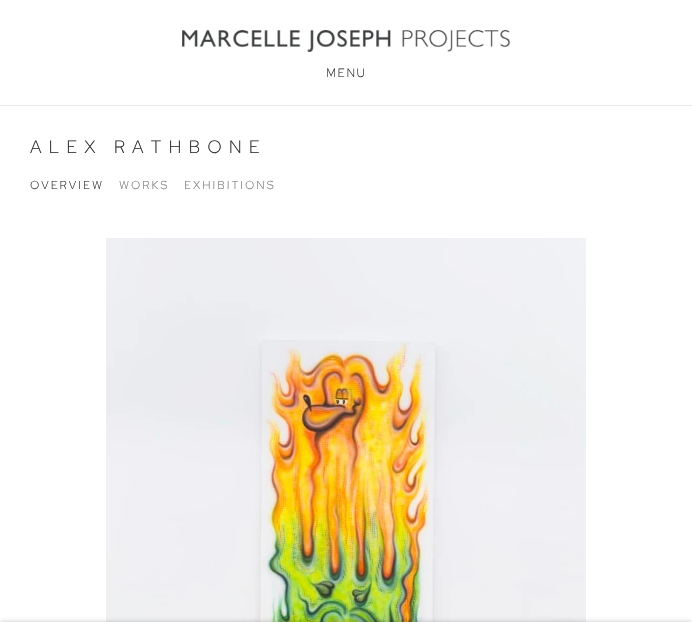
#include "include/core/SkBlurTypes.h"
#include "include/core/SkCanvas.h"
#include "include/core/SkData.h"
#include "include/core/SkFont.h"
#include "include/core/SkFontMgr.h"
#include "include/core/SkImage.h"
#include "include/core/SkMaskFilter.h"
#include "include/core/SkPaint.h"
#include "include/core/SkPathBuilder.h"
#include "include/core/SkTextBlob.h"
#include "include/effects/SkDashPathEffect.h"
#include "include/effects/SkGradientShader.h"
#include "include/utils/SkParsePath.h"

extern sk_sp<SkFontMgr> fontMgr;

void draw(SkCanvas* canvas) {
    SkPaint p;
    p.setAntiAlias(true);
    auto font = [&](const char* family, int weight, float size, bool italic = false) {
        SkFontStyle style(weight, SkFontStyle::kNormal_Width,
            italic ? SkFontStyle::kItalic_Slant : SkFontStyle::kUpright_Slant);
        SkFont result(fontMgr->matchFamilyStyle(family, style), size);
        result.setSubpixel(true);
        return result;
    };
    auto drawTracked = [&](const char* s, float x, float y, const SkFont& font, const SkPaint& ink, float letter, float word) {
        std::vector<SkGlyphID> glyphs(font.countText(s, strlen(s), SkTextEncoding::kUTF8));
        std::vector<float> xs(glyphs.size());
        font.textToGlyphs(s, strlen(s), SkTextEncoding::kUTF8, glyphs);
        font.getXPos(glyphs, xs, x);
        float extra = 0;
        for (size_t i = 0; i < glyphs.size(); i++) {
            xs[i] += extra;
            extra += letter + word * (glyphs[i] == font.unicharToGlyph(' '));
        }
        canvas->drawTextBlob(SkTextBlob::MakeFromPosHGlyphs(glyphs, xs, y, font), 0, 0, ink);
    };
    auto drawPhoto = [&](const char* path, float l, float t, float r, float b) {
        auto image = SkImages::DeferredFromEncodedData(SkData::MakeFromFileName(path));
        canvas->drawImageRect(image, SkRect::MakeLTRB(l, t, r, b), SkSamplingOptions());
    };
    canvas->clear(0xFFFFFFFF);
    p.setColor(0xFFEBEBEB);
    canvas->drawRect(SkRect::MakeLTRB(0, 105, 692, 106), p);
    drawPhoto("media/1.png", 182, 30, 511, 52);
    auto font1 = font("Red Hat Text", 300, 12);
    p.setColor(0xFF303030);
    drawTracked("MENU", 326, 77, font1, p, 1.5f, 0);
    auto font2 = font("Red Hat Text", 300, 18);
    drawTracked("ALEX RATHBONE", 30, 153, font2, p, 7, 0);
    auto font3 = font("Red Hat Text", 300, 11.5f);
    drawTracked("OVERVIEW", 30, 189, font3, p, 2, 0);
    p.setColor(0xFF757575);
    drawTracked("WORKS", 119, 189, font3, p, 2, 0);
    drawTracked("EXHIBITIONS", 184, 189, font3, p, 2, 0);
    drawPhoto("media/2.png", 106, 238, 586, 622);
    p.setColor(0x3B000000);
    p.setMaskFilter(SkMaskFilter::MakeBlur(kNormal_SkBlurStyle, 2.5f));
    canvas->drawRect(SkRect::MakeLTRB(0, 622, 692, 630), p);
    p.setMaskFilter(nullptr);
}
